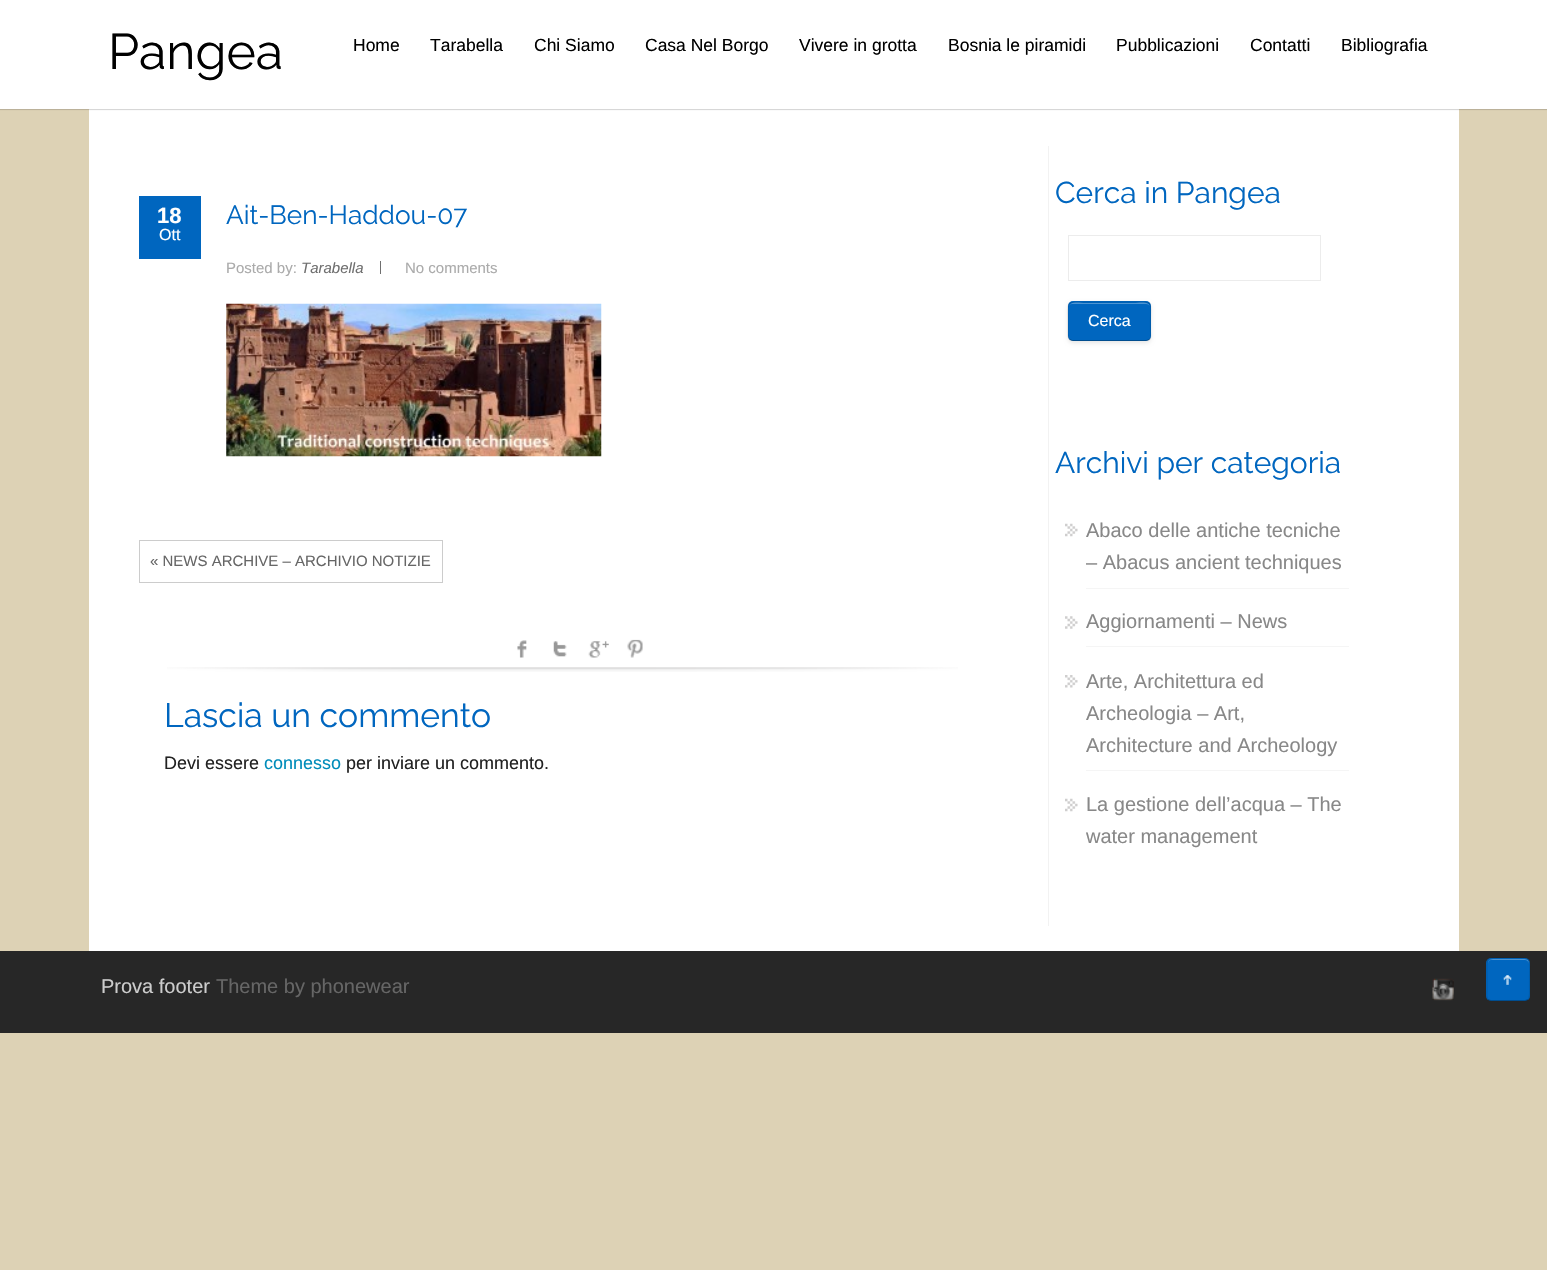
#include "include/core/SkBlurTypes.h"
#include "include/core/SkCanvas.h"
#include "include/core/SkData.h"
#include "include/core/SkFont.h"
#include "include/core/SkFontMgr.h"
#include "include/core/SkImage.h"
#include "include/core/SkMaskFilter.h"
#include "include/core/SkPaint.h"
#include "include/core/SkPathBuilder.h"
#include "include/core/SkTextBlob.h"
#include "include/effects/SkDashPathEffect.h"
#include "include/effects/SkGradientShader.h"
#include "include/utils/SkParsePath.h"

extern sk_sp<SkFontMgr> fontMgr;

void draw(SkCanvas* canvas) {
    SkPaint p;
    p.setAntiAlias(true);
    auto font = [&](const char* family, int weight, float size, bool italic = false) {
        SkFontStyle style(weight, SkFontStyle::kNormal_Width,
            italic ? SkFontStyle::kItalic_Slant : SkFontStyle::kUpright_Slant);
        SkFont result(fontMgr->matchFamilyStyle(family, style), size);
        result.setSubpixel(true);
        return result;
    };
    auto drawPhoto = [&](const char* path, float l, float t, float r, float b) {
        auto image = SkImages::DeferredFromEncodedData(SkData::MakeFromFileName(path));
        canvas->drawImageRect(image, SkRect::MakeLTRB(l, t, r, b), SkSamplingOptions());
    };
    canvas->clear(0xFFDDD2B5);
    p.setColor(0xFFFFFFFF);
    canvas->drawRect(SkRect::MakeLTRB(89, 109, 1459, 951), p);
    p.setColor(0x0F000000);
    canvas->drawPath(SkPathBuilder().moveTo(0, 109).lineTo(0, 110).lineTo(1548, 110).lineTo(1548, 1).lineTo(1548, 109).close().detach(), p);
    p.setColor(0x1A000000);
    p.setMaskFilter(SkMaskFilter::MakeBlur(kNormal_SkBlurStyle, 0.5f));
    canvas->drawRect(SkRect::MakeLTRB(0, 1, 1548, 110), p);
    p.setMaskFilter(nullptr);
    p.setColor(0xFFFFFFFF);
    canvas->drawRect(SkRect::MakeLTRB(0, 0, 1547, 109), p);
    auto font1 = font("Raleway", 100, 50);
    p.setColor(0xFF000000);
    canvas->drawString("Pangea", 108, 69, font1, p);
    auto font2 = font("Liberation Sans", 400, 17.5f);
    {
        const struct { const char* s; float x, y; } items[] = {
            {"Home", 353, 51},
            {"Tarabella", 430, 51},
            {"Chi Siamo", 534, 51},
            {"Casa Nel Borgo", 645, 51},
            {"Vivere in grotta", 799, 51},
            {"Bosnia le piramidi", 948, 51},
            {"Pubblicazioni", 1116, 51},
            {"Contatti", 1250, 51},
            {"Bibliografia", 1341, 51},
        };
        for (auto [s, x, y] : items) {
            canvas->drawString(s, x, y, font2, p);
        }
    }
    p.setColor(0xFF0066BF);
    canvas->drawRect(SkRect::MakeLTRB(139, 196, 201, 259), p);
    auto font3 = font("Liberation Sans", 700, 22);
    p.setColor(0xFFFFFFFF);
    canvas->drawString("18", 157, 223, font3, p);
    auto font4 = font("Liberation Sans", 400, 16);
    canvas->drawString("Ott", 159, 240, font4, p);
    auto font5 = font("Raleway", 100, 26.25f);
    p.setColor(0xFF0066BF);
    canvas->drawString("Ait-Ben-Haddou-07", 226, 224, font5, p);
    auto font6 = font("Liberation Sans", 400, 15);
    p.setColor(0xFFABABAB);
    canvas->drawString("Posted by:", 226, 273, font6, p);
    auto font7 = font("Liberation Sans", 400, 15, true);
    p.setColor(0xFF6F6F6F);
    canvas->drawString("Tarabella", 301, 273, font7, p);
    canvas->drawRect(SkRect::MakeLTRB(380, 261, 381, 274), p);
    p.setColor(0xFFABABAB);
    canvas->drawString("No comments", 405, 273, font6, p);
    drawPhoto("media/1.png", 226, 303, 602, 457);
    p.setStyle(SkPaint::kStroke_Style);
    p.setStrokeWidth(1);
    p.setColor(0xFFCCCCCC);
    canvas->drawRect(SkRect::MakeLTRB(139.5f, 540.5f, 442.5f, 582.5f), p);
    p.setStyle(SkPaint::kFill_Style);
    p.setColor(0xFF666666);
    canvas->drawString("« NEWS ARCHIVE – ARCHIVIO NOTIZIE", 150, 566, font6, p);
    drawPhoto("media/2.png", 517, 640, 527, 658);
    drawPhoto("media/3.png", 553, 641, 567, 657);
    drawPhoto("media/4.png", 588, 641, 609, 658);
    drawPhoto("media/5.png", 627, 639, 643, 658);
    drawPhoto("media/6.png", 167, 667, 958, 672);
    auto font8 = font("Raleway", 100, 33.75f);
    p.setColor(0xFF0066BF);
    canvas->drawString("Lascia un commento", 164, 727, font8, p);
    auto font9 = font("Liberation Sans", 400, 18);
    p.setColor(0xFF222222);
    canvas->drawString("Devi essere", 164, 769, font9, p);
    p.setColor(0xFF008CBA);
    canvas->drawString("connesso", 264, 769, font9, p);
    p.setColor(0xFF222222);
    canvas->drawString("per inviare un commento.", 346, 769, font9, p);
    p.setColor(0xFFF2F2F2);
    canvas->drawRect(SkRect::MakeLTRB(1048, 146, 1049, 926), p);
    auto font10 = font("Raleway", 100, 30);
    p.setColor(0xFF0066BF);
    canvas->drawString("Cerca in Pangea", 1055, 203, font10, p);
    p.setStyle(SkPaint::kStroke_Style);
    p.setColor(0xFFECECEC);
    canvas->drawRect(SkRect::MakeLTRB(1068.5f, 235.5f, 1320.5f, 280.5f), p);
    p.setStyle(SkPaint::kFill_Style);
    p.setColor(0x1A000000);
    p.setMaskFilter(SkMaskFilter::MakeBlur(kNormal_SkBlurStyle, 2));
    canvas->drawRoundRect(SkRect::MakeLTRB(1068, 303, 1151, 343), 5, 5, p);
    p.setMaskFilter(nullptr);
    p.setColor(0xFF0066BF);
    canvas->drawRoundRect(SkRect::MakeLTRB(1068, 301, 1151, 341), 5, 5, p);
    p.setColor(0xFF4D94D2);
    canvas->drawPath(SkPathBuilder().moveTo(1072, 304).lineTo(1146, 304).cubicTo(1148, 304, 1150, 305, 1150, 308).cubicTo(1150, 300, 1139, 303, 1134, 303).lineTo(1085, 303).cubicTo(1080, 303, 1069, 300, 1069, 308).cubicTo(1069, 305, 1070, 304, 1072, 304).close().detach(), p);
    p.setStyle(SkPaint::kStroke_Style);
    p.setStrokeWidth(1.2f);
    p.setColor(0x40000000);
    canvas->drawPath(SkPathBuilder().moveTo(1149.5f, 339.5f).lineTo(1146.5f, 340.5f).lineTo(1072, 340.5f).lineTo(1069.5f, 339.5f).detach(), p);
    p.setColor(0x1A000000);
    canvas->drawPath(SkPathBuilder().moveTo(1069.5f, 339.5f).cubicTo(1067.5f, 337.5f, 1068, 333.5f, 1068, 331).lineTo(1068, 321).cubicTo(1068, 300.5f, 1064.5f, 302, 1085, 302).lineTo(1134, 302).cubicTo(1154.5f, 302, 1150.5f, 300.5f, 1150.5f, 321).lineTo(1150.5f, 331).cubicTo(1150.5f, 333.5f, 1151.5f, 337.5f, 1149.5f, 339.5f).detach(), p);
    p.setStyle(SkPaint::kFill_Style);
    p.setColor(0xFFFFFFFF);
    canvas->drawString("Cerca", 1088, 326, font4, p);
    p.setColor(0xFF0066BF);
    canvas->drawString("Archivi per categoria", 1055, 473, font10, p);
    p.setColor(0xFFF5F5F5);
    canvas->drawRect(SkRect::MakeLTRB(1086, 588, 1349, 589), p);
    drawPhoto("media/7.png", 1065, 523, 1078, 537);
    auto font11 = font("Liberation Sans", 400, 20);
    p.setColor(0xFF888888);
    canvas->drawString("Abaco delle antiche tecniche", 1086, 537, font11, p);
    canvas->drawString("– Abacus ancient techniques", 1086, 569, font11, p);
    p.setColor(0xFFF5F5F5);
    canvas->drawRect(SkRect::MakeLTRB(1086, 646, 1349, 647), p);
    drawPhoto("media/8.png", 1065, 616, 1078, 629);
    p.setColor(0xFF888888);
    canvas->drawString("Aggiornamenti – News", 1086, 628, font11, p);
    p.setColor(0xFFF5F5F5);
    canvas->drawRect(SkRect::MakeLTRB(1086, 770, 1349, 771), p);
    drawPhoto("media/9.png", 1065, 675, 1078, 688);
    p.setColor(0xFF888888);
    {
        const struct { const char* s; float x, y; } items[] = {
            {"Arte, Architettura ed", 1086, 688},
            {"Archeologia – Art,", 1086, 720},
            {"Architecture and Archeology", 1086, 752},
        };
        for (auto [s, x, y] : items) {
            canvas->drawString(s, x, y, font11, p);
        }
    }
    drawPhoto("media/7.png", 1065, 798, 1078, 812);
    canvas->drawString("La gestione dell’acqua – The", 1086, 811, font11, p);
    canvas->drawString("water management", 1086, 843, font11, p);
    p.setColor(0xFF272727);
    canvas->drawRect(SkRect::MakeLTRB(0, 951, 1547, 1033), p);
    p.setColor(0xFFCCCCCC);
    canvas->drawString("Prova footer", 101, 993, font11, p);
    p.setColor(0xFF666666);
    canvas->drawString("Theme by phonewear", 216, 993, font11, p);
    drawPhoto("media/10.png", 1432, 978, 1454, 1001);
    p.setColor(0xFF0066BF);
    canvas->drawRoundRect(SkRect::MakeLTRB(1486, 958, 1530, 1001), 5, 5, p);
    drawPhoto("media/11.png", 1503, 975, 1512, 985);
    p.setColor(0xFF4D94D2);
    canvas->drawPath(SkPathBuilder().moveTo(1491, 960).lineTo(1525, 960).cubicTo(1527, 960, 1529, 962, 1529, 964).cubicTo(1529, 958, 1524, 959, 1520, 959).lineTo(1498, 959).cubicTo(1493, 959, 1488, 958, 1488, 964).cubicTo(1488, 962, 1489, 960, 1491, 960).close().detach(), p);
    p.setStyle(SkPaint::kStroke_Style);
    p.setColor(0x40000000);
    canvas->drawPath(SkPathBuilder().moveTo(1528, 999.5f).cubicTo(1527.5f, 1000, 1526, 1000.5f, 1525, 1000.5f).lineTo(1491, 1000.5f).cubicTo(1490, 1000.5f, 1489, 1000, 1488, 999.5f).detach(), p);
    p.setColor(0x1A000000);
    canvas->drawPath(SkPathBuilder().moveTo(1488, 999.5f).cubicTo(1486, 997, 1487, 993, 1487, 990.5f).lineTo(1487, 979.5f).cubicTo(1487, 954.5f, 1483, 958, 1508, 958).cubicTo(1533, 958, 1529.5f, 954.5f, 1529.5f, 979.5f).lineTo(1529.5f, 990.5f).cubicTo(1529.5f, 993, 1530, 997, 1528, 999.5f).detach(), p);
}
